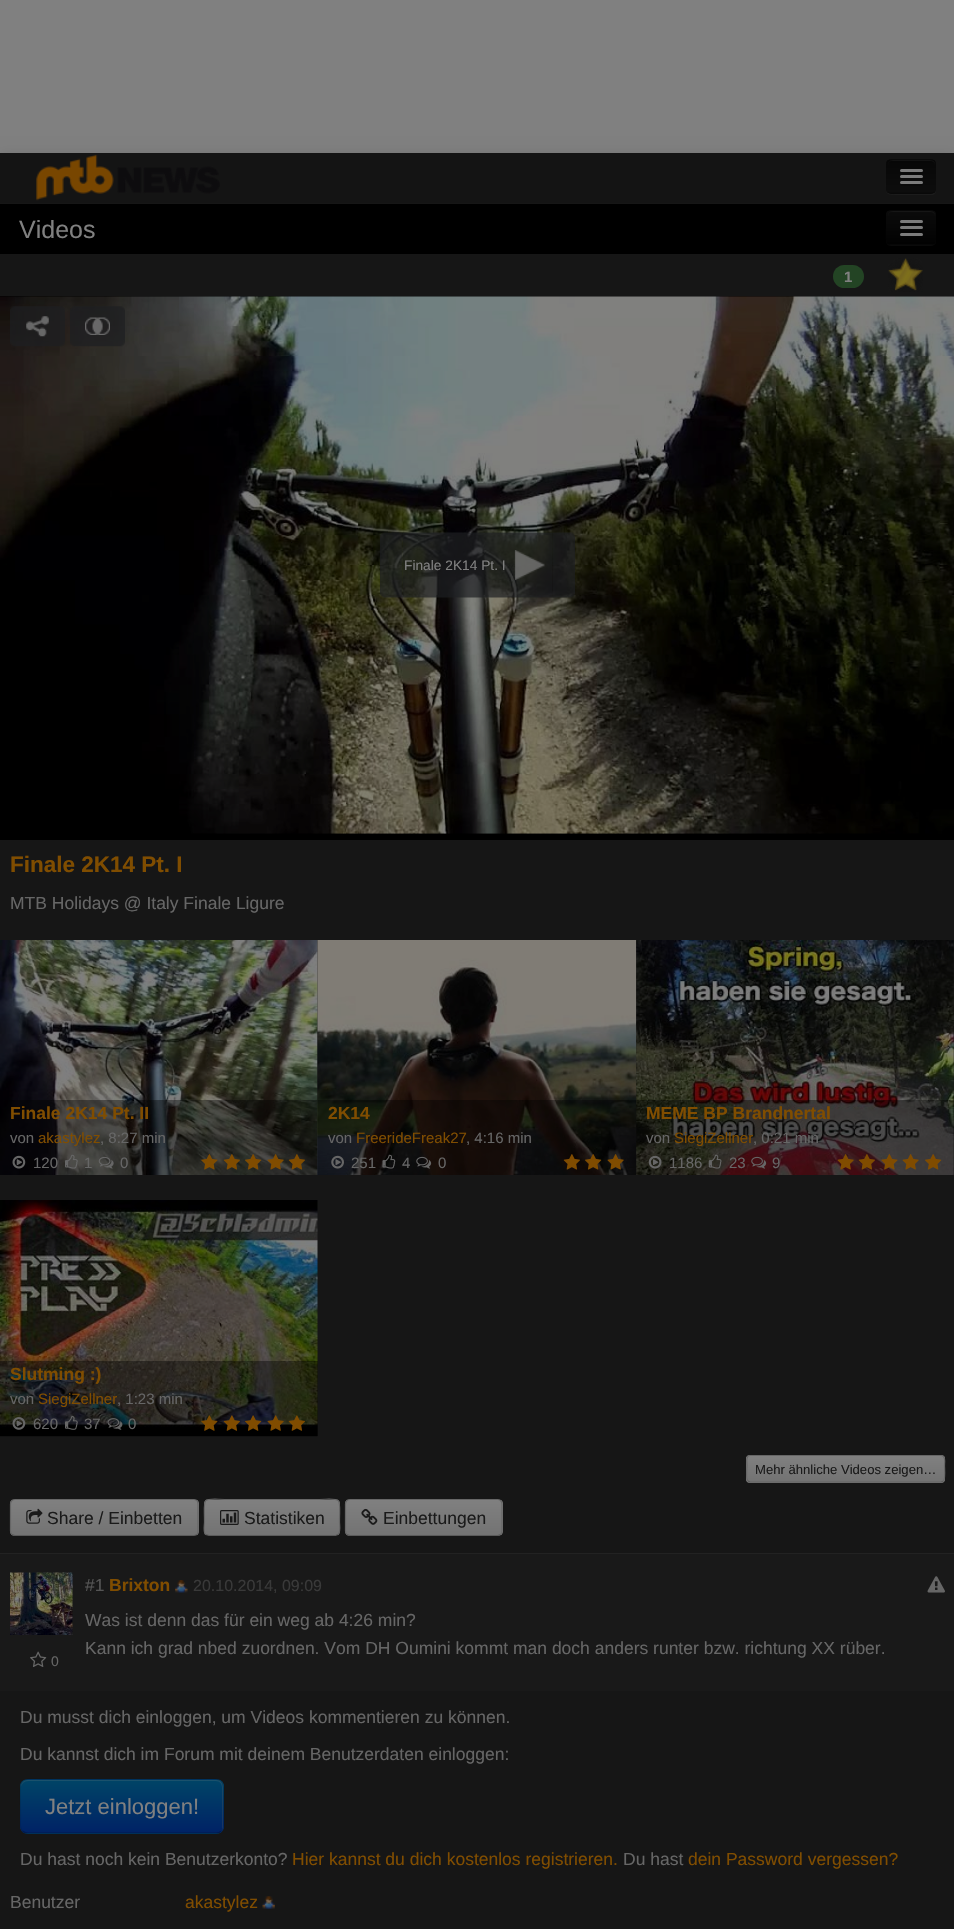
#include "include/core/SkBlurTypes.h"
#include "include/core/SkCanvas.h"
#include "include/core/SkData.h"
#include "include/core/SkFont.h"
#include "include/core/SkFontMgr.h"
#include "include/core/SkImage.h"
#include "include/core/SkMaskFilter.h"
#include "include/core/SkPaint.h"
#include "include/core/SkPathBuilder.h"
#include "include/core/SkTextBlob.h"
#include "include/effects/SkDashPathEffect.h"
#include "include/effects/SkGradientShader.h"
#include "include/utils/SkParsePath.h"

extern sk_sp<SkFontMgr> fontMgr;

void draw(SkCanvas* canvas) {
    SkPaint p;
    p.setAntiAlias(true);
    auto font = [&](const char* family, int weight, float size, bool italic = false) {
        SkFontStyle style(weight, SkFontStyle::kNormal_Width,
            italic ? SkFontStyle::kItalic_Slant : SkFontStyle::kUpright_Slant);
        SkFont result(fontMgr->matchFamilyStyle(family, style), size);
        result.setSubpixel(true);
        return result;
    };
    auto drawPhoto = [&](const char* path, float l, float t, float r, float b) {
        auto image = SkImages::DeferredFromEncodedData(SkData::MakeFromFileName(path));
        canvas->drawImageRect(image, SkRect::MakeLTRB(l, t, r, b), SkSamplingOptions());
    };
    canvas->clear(0xFF808080);
    p.setColor(0x1A000000);
    p.setMaskFilter(SkMaskFilter::MakeBlur(kNormal_SkBlurStyle, 6));
    canvas->drawRect(SkRect::MakeLTRB(0, 154, 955, 204), p);
    p.setMaskFilter(nullptr);
    p.setColor(0xFF141414);
    canvas->drawRect(SkRect::MakeLTRB(0, 153, 954, 203), p);
    drawPhoto("media/1.png", 36, 154, 220, 201);
    p.setColor(0xFF1C1C1C);
    canvas->drawPath(SkPathBuilder().moveTo(886, 163).lineTo(886, 182).cubicTo(886, 194, 885, 195, 898, 195).lineTo(933, 195).cubicTo(935, 194, 936, 192, 936, 190).cubicTo(934, 195, 928, 194, 925, 194).lineTo(898, 194).cubicTo(895, 194, 890, 195, 888, 192).lineTo(886, 190).close().detach(), p);
    p.setColor(0xFF0A0A0A);
    canvas->drawRoundRect(SkRect::MakeLTRB(886, 159, 936, 194), 5, 5, p);
    canvas->save();
    canvas->clipPath(SkPathBuilder().moveTo(891, 159).lineTo(931, 159).cubicTo(934, 159, 936, 161, 936, 164).lineTo(936, 189).cubicTo(936, 192, 934, 194, 931, 194).lineTo(891, 194).cubicTo(888, 194, 886, 192, 886, 189).lineTo(886, 164).cubicTo(886, 161, 888, 159, 891, 159).close().detach(), true);
    {
        const SkColor colors[] = {0xFF070707, 0xFF0D0D0D};
        const float stops[] = {0, 1};
        const SkPoint ends[] = {{911, 160}, {911, 193}};
        p.setShader(SkGradientShader::MakeLinear(ends, colors, stops, 2, SkTileMode::kClamp));
        p.setAlpha(255);
    }
    canvas->drawRect(SkRect::MakeLTRB(886, 160, 936, 193), p);
    canvas->restore();
    p.setShader(nullptr);
    p.setColor(0xFF131313);
    canvas->drawPath(SkPathBuilder().moveTo(891, 161).lineTo(931, 161).cubicTo(933, 161, 935, 163, 935, 165).cubicTo(935, 159, 929, 160, 924, 160).lineTo(898, 160).cubicTo(894, 160, 888, 159, 888, 165).cubicTo(888, 163, 889, 161, 891, 161).close().detach(), p);
    p.setStyle(SkPaint::kStroke_Style);
    p.setStrokeWidth(1.2f);
    p.setColor(0x40000000);
    canvas->drawPath(SkPathBuilder().moveTo(934.5f, 192).cubicTo(933.5f, 192.5f, 932.5f, 193, 931, 193).lineTo(891, 193).cubicTo(890, 193, 889, 192.5f, 888, 192).detach(), p);
    p.setStyle(SkPaint::kFill_Style);
    p.setColor(0xFF7B7B7B);
    canvas->drawRoundRect(SkRect::MakeLTRB(900, 169, 923, 172), 1.5f, 1.5f, p);
    canvas->drawRoundRect(SkRect::MakeLTRB(900, 175, 923, 178), 1.5f, 1.5f, p);
    p.setColor(0xFF090909);
    canvas->drawPath(SkPathBuilder().moveTo(900.5f, 183.5f).lineTo(900, 185).cubicTo(900.5f, 187, 904, 186, 905, 186).lineTo(908, 186).cubicTo(910, 186, 921.5f, 186.5f, 922.5f, 185.5f).cubicTo(923, 185, 923, 184, 922.5f, 183).lineTo(921.5f, 183.5f).cubicTo(919.5f, 184, 901, 184, 900.5f, 183.5f).close().detach(), p);
    p.setColor(0xFF7B7B7B);
    canvas->drawRoundRect(SkRect::MakeLTRB(900, 181, 923, 184), 1.5f, 1.5f, p);
    p.setColor(0xFF161616);
    canvas->drawRect(SkRect::MakeLTRB(0, 203, 954, 1929), p);
    p.setColor(0xFF000000);
    canvas->drawRect(SkRect::MakeLTRB(0, 204, 954, 254), p);
    auto font1 = font("Liberation Sans", 400, 25);
    p.setColor(0xFF808080);
    canvas->drawString("Videos", 19, 238, font1, p);
    p.setColor(0xFF0A0A0A);
    canvas->drawPath(SkPathBuilder().moveTo(886, 214).lineTo(886, 228).cubicTo(886, 248, 884, 246, 904, 246).lineTo(924, 246).cubicTo(928, 246, 935, 247, 936, 242).cubicTo(935, 244, 933, 245, 931, 245).lineTo(891, 245).cubicTo(888, 245, 886, 243, 886, 240).close().detach(), p);
    p.setColor(0xFF070707);
    canvas->drawRoundRect(SkRect::MakeLTRB(886, 210, 936, 245), 5, 5, p);
    canvas->save();
    canvas->clipPath(SkPathBuilder().moveTo(891, 210).lineTo(931, 210).cubicTo(934, 210, 936, 212, 936, 215).lineTo(936, 240).cubicTo(936, 243, 934, 245, 931, 245).lineTo(891, 245).cubicTo(888, 245, 886, 243, 886, 240).lineTo(886, 215).cubicTo(886, 212, 888, 210, 891, 210).close().detach(), true);
    {
        const SkColor colors[] = {0xFF0B0B0B, 0xFF020202};
        const float stops[] = {0, 1};
        const SkPoint ends[] = {{911, 211}, {911, 244}};
        p.setShader(SkGradientShader::MakeLinear(ends, colors, stops, 2, SkTileMode::kClamp));
        p.setAlpha(255);
    }
    canvas->drawRect(SkRect::MakeLTRB(886, 211, 936, 244), p);
    canvas->restore();
    p.setShader(nullptr);
    p.setColor(0xFF161616);
    canvas->drawPath(SkPathBuilder().moveTo(891, 212).lineTo(931, 212).cubicTo(933, 212, 935, 214, 935, 216).cubicTo(935, 210, 929, 211, 924, 211).lineTo(898, 211).cubicTo(894, 211, 888, 210, 888, 216).cubicTo(888, 214, 889, 212, 891, 212).close().detach(), p);
    p.setColor(0xFF7B7B7B);
    canvas->drawRoundRect(SkRect::MakeLTRB(900, 220, 923, 223), 1.5f, 1.5f, p);
    canvas->drawRoundRect(SkRect::MakeLTRB(900, 226, 923, 229), 1.5f, 1.5f, p);
    canvas->drawRoundRect(SkRect::MakeLTRB(900, 233, 923, 236), 1.5f, 1.5f, p);
    p.setColor(0xFF234424);
    canvas->drawRoundRect(SkRect::MakeLTRB(833, 265, 864, 288), 11.5f, 11.5f, p);
    auto font2 = font("Liberation Sans", 700, 15);
    p.setColor(0xFF808080);
    canvas->drawString("1", 844, 282, font2, p);
    drawPhoto("media/2.png", 888, 258, 923, 292);
    p.setColor(0xFF000000);
    canvas->drawRect(SkRect::MakeLTRB(0, 296, 954, 840), p);
    drawPhoto("media/7.png", 0, 296, 954, 834);
    drawPhoto("media/3.png", 10, 306, 65, 347);
    drawPhoto("media/4.png", 26, 316, 49, 337);
    drawPhoto("media/5.png", 70, 306, 125, 347);
    drawPhoto("media/6.png", 85, 317, 110, 335);
    drawPhoto("media/8.png", 380, 532, 575, 598);
    auto font3 = font("Liberation Sans", 400, 13.75f);
    p.setColor(0xFF808080);
    canvas->drawString("Finale 2K14 Pt. I", 404, 570, font3, p);
    drawPhoto("media/9.png", 514, 550, 545, 580);
    auto font4 = font("Liberation Sans", 700, 22.5f);
    p.setColor(0xFF804D00);
    canvas->drawString("Finale 2K14 Pt. I", 10, 872, font4, p);
    auto font5 = font("Liberation Sans", 400, 17.5f);
    p.setColor(0xFF666666);
    canvas->drawString("MTB Holidays @ Italy Finale Ligure", 10, 909, font5, p);
    drawPhoto("media/10.png", 0, 940, 318, 1175);
    p.setColor(0x66000000);
    canvas->drawRect(SkRect::MakeLTRB(0, 1100, 318, 1175), p);
    auto font6 = font("Liberation Sans", 700, 17.5f);
    p.setColor(0xFF804D00);
    canvas->drawString("Finale 2K14 Pt. II", 10, 1119, font6, p);
    auto font7 = font("Liberation Sans", 400, 15);
    p.setColor(0xFF666666);
    canvas->drawString("von", 10, 1143, font7, p);
    p.setColor(0xFF804D00);
    canvas->drawString("akastylez", 38, 1143, font7, p);
    p.setColor(0xFF666666);
    canvas->drawString(", 8:27 min", 100, 1143, font7, p);
    drawPhoto("media/11.png", 12, 1155, 26, 1169);
    canvas->drawString("120", 33, 1168, font7, p);
    drawPhoto("media/12.png", 65, 1154, 78, 1169);
    canvas->drawString("1", 84, 1168, font7, p);
    drawPhoto("media/13.png", 98, 1156, 114, 1169);
    canvas->drawString("0", 120, 1168, font7, p);
    drawPhoto("media/14.png", 201, 1154, 218, 1170);
    drawPhoto("media/15.png", 223, 1154, 240, 1170);
    drawPhoto("media/16.png", 245, 1154, 262, 1170);
    drawPhoto("media/17.png", 267, 1154, 284, 1170);
    drawPhoto("media/18.png", 288, 1154, 305, 1170);
    drawPhoto("media/19.png", 317, 940, 637, 1175);
    p.setColor(0x66000000);
    canvas->drawRect(SkRect::MakeLTRB(318, 1100, 636, 1175), p);
    p.setColor(0xFF804D00);
    canvas->drawString("2K14", 328, 1119, font6, p);
    p.setColor(0xFF666666);
    canvas->drawString("von", 328, 1143, font7, p);
    p.setColor(0xFF804D00);
    canvas->drawString("FreerideFreak27", 356, 1143, font7, p);
    p.setColor(0xFF666666);
    canvas->drawString(", 4:16 min", 466, 1143, font7, p);
    drawPhoto("media/20.png", 331, 1155, 344, 1169);
    canvas->drawString("251", 351, 1168, font7, p);
    drawPhoto("media/21.png", 382, 1154, 396, 1169);
    canvas->drawString("4", 402, 1168, font7, p);
    drawPhoto("media/22.png", 416, 1156, 432, 1169);
    canvas->drawString("0", 438, 1168, font7, p);
    drawPhoto("media/23.png", 563, 1154, 580, 1170);
    drawPhoto("media/24.png", 585, 1154, 602, 1170);
    drawPhoto("media/25.png", 607, 1154, 624, 1170);
    drawPhoto("media/26.png", 636, 940, 954, 1175);
    p.setColor(0x66000000);
    canvas->drawRect(SkRect::MakeLTRB(636, 1100, 954, 1175), p);
    p.setColor(0xFF804D00);
    canvas->drawString("MEME BP Brandnertal", 646, 1119, font6, p);
    p.setColor(0xFF666666);
    canvas->drawString("von", 646, 1143, font7, p);
    p.setColor(0xFF804D00);
    canvas->drawString("SiegiZellner", 674, 1143, font7, p);
    p.setColor(0xFF666666);
    canvas->drawString(", 0:21 min", 753, 1143, font7, p);
    drawPhoto("media/27.png", 648, 1155, 662, 1169);
    canvas->drawString("1186", 669, 1168, font7, p);
    drawPhoto("media/28.png", 708, 1154, 722, 1169);
    canvas->drawString("23", 729, 1168, font7, p);
    drawPhoto("media/29.png", 751, 1156, 767, 1169);
    canvas->drawString("9", 772, 1168, font7, p);
    drawPhoto("media/30.png", 837, 1154, 854, 1170);
    drawPhoto("media/31.png", 858, 1154, 875, 1170);
    drawPhoto("media/32.png", 881, 1154, 898, 1170);
    drawPhoto("media/33.png", 902, 1154, 919, 1170);
    drawPhoto("media/34.png", 925, 1154, 942, 1170);
    drawPhoto("media/35.png", 0, 1200, 318, 1437);
    p.setColor(0x66000000);
    canvas->drawRect(SkRect::MakeLTRB(0, 1361, 318, 1436), p);
    p.setColor(0xFF804D00);
    canvas->drawString("Slutming :)", 10, 1380, font6, p);
    p.setColor(0xFF666666);
    canvas->drawString("von", 10, 1404, font7, p);
    p.setColor(0xFF804D00);
    canvas->drawString("SiegiZellner", 38, 1404, font7, p);
    p.setColor(0xFF666666);
    canvas->drawString(", 1:23 min", 117, 1404, font7, p);
    drawPhoto("media/36.png", 12, 1417, 26, 1430);
    canvas->drawString("620", 33, 1429, font7, p);
    drawPhoto("media/37.png", 65, 1416, 78, 1430);
    canvas->drawString("37", 84, 1429, font7, p);
    drawPhoto("media/38.png", 107, 1418, 123, 1430);
    canvas->drawString("0", 128, 1429, font7, p);
    drawPhoto("media/39.png", 201, 1415, 218, 1431);
    drawPhoto("media/40.png", 223, 1415, 240, 1431);
    drawPhoto("media/41.png", 245, 1415, 262, 1431);
    drawPhoto("media/42.png", 267, 1415, 284, 1431);
    drawPhoto("media/43.png", 288, 1415, 305, 1431);
    p.setColor(0xFF7B7B7B);
    canvas->drawRoundRect(SkRect::MakeLTRB(746, 1455, 945, 1483), 4, 4, p);
    canvas->save();
    canvas->clipPath(SkPathBuilder().moveTo(750, 1455).lineTo(941, 1455).cubicTo(943, 1455, 945, 1457, 945, 1459).lineTo(945, 1479).cubicTo(945, 1481, 943, 1483, 941, 1483).lineTo(750, 1483).cubicTo(748, 1483, 746, 1481, 746, 1479).lineTo(746, 1459).cubicTo(746, 1457, 748, 1455, 750, 1455).close().detach(), true);
    {
        const SkColor colors[] = {0xFF808080, 0xFF737373};
        const float stops[] = {0, 1};
        const SkPoint ends[] = {{846, 1456}, {846, 1481}};
        p.setShader(SkGradientShader::MakeLinear(ends, colors, stops, 2, SkTileMode::kClamp));
        p.setAlpha(255);
    }
    canvas->drawRect(SkRect::MakeLTRB(746, 1456, 945, 1481), p);
    canvas->restore();
    p.setStyle(SkPaint::kStroke_Style);
    p.setShader(nullptr);
    p.setColor(0xFF5A5A5A);
    canvas->drawPath(SkPathBuilder().moveTo(943.5f, 1481).lineTo(941, 1482).lineTo(750, 1482).lineTo(748, 1481).detach(), p);
    p.setColor(0xFF666666);
    canvas->drawPath(SkPathBuilder().moveTo(748, 1481).cubicTo(745.5f, 1479, 747, 1468.5f, 747, 1465.5f).cubicTo(747, 1463, 745.5f, 1455.5f, 750, 1455.5f).lineTo(941, 1455.5f).cubicTo(946, 1455.5f, 944.5f, 1463, 944.5f, 1465.5f).cubicTo(944.5f, 1468.5f, 945.5f, 1479, 943.5f, 1481).detach(), p);
    auto font8 = font("Liberation Sans", 400, 13.1f);
    p.setStyle(SkPaint::kFill_Style);
    p.setColor(0xFF1A1A1A);
    canvas->drawString("Mehr ähnliche Videos zeigen…", 755, 1474, font8, p);
    canvas->save();
    canvas->clipPath(SkPathBuilder().moveTo(15, 1499).lineTo(194, 1499).cubicTo(197, 1499, 199, 1501, 199, 1504).lineTo(199, 1531).cubicTo(199, 1534, 197, 1536, 194, 1536).lineTo(15, 1536).cubicTo(12, 1536, 10, 1534, 10, 1531).lineTo(10, 1504).cubicTo(10, 1501, 12, 1499, 15, 1499).close().detach(), true);
    {
        const SkColor colors[] = {0xFF808080, 0xFF737373};
        const float stops[] = {0, 1};
        const SkPoint ends[] = {{104, 1500}, {104, 1535}};
        p.setShader(SkGradientShader::MakeLinear(ends, colors, stops, 2, SkTileMode::kClamp));
        p.setAlpha(255);
    }
    canvas->drawRect(SkRect::MakeLTRB(10, 1500, 199, 1535), p);
    canvas->restore();
    p.setStyle(SkPaint::kStroke_Style);
    p.setShader(nullptr);
    p.setColor(0xFF5A5A5A);
    canvas->drawPath(SkPathBuilder().moveTo(197, 1534.5f).cubicTo(196, 1535, 195, 1535.5f, 194, 1535.5f).lineTo(15, 1535.5f).cubicTo(14, 1535.5f, 12.5f, 1535, 12, 1534.5f).detach(), p);
    p.setColor(0xFF666666);
    canvas->drawPath(SkPathBuilder().moveTo(12, 1534.5f).cubicTo(11, 1533.5f, 10.5f, 1532.5f, 10.5f, 1531).lineTo(10.5f, 1504).cubicTo(10.5f, 1502.5f, 11, 1501.5f, 12, 1500.5f).cubicTo(12.5f, 1500, 14, 1499.5f, 15, 1499.5f).lineTo(194, 1499.5f).cubicTo(195, 1499.5f, 196, 1500, 197, 1500.5f).cubicTo(197.5f, 1501.5f, 198, 1502.5f, 198, 1504).lineTo(198, 1531).cubicTo(198, 1532.5f, 197.5f, 1533.5f, 197, 1534.5f).detach(), p);
    drawPhoto("media/44.png", 26, 1508, 43, 1524);
    p.setStyle(SkPaint::kFill_Style);
    p.setColor(0xFF1A1A1A);
    canvas->drawString("Share / Einbetten", 47, 1524, font5, p);
    canvas->save();
    canvas->clipPath(SkPathBuilder().moveTo(209, 1499).lineTo(335, 1499).cubicTo(338, 1499, 340, 1501, 340, 1504).lineTo(340, 1531).cubicTo(340, 1534, 338, 1536, 335, 1536).lineTo(209, 1536).cubicTo(206, 1536, 204, 1534, 204, 1531).lineTo(204, 1504).cubicTo(204, 1501, 206, 1499, 209, 1499).close().detach(), true);
    {
        const SkColor colors[] = {0xFF808080, 0xFF737373};
        const float stops[] = {0, 1};
        const SkPoint ends[] = {{272, 1500}, {272, 1535}};
        p.setShader(SkGradientShader::MakeLinear(ends, colors, stops, 2, SkTileMode::kClamp));
        p.setAlpha(255);
    }
    canvas->drawRect(SkRect::MakeLTRB(204, 1500, 340, 1535), p);
    canvas->restore();
    p.setStyle(SkPaint::kStroke_Style);
    p.setShader(nullptr);
    p.setColor(0xFF5A5A5A);
    canvas->drawPath(SkPathBuilder().moveTo(338, 1534.5f).lineTo(335.5f, 1535.5f).lineTo(230, 1535.5f).lineTo(209, 1535.5f).lineTo(205.5f, 1534.5f).detach(), p);
    p.setColor(0xFF666666);
    canvas->drawPath(SkPathBuilder().moveTo(205.5f, 1534.5f).cubicTo(203, 1531.5f, 204.5f, 1525, 204.5f, 1522).cubicTo(204.5f, 1494.5f, 200, 1499.5f, 230, 1499.5f).lineTo(314, 1499.5f).cubicTo(344, 1499.5f, 339.5f, 1494.5f, 339.5f, 1522).cubicTo(339.5f, 1525, 341, 1531.5f, 338, 1534.5f).detach(), p);
    drawPhoto("media/45.png", 220, 1510, 239, 1525);
    p.setStyle(SkPaint::kFill_Style);
    p.setColor(0xFF1A1A1A);
    canvas->drawString("Statistiken", 244, 1524, font5, p);
    canvas->save();
    canvas->clipPath(SkPathBuilder().moveTo(350, 1499).lineTo(498, 1499).cubicTo(501, 1499, 503, 1501, 503, 1504).lineTo(503, 1531).cubicTo(503, 1534, 501, 1536, 498, 1536).lineTo(350, 1536).cubicTo(347, 1536, 345, 1534, 345, 1531).lineTo(345, 1504).cubicTo(345, 1501, 347, 1499, 350, 1499).close().detach(), true);
    {
        const SkColor colors[] = {0xFF808080, 0xFF737373};
        const float stops[] = {0, 1};
        const SkPoint ends[] = {{424, 1500}, {424, 1535}};
        p.setShader(SkGradientShader::MakeLinear(ends, colors, stops, 2, SkTileMode::kClamp));
        p.setAlpha(255);
    }
    canvas->drawRect(SkRect::MakeLTRB(345, 1500, 503, 1535), p);
    canvas->restore();
    p.setStyle(SkPaint::kStroke_Style);
    p.setShader(nullptr);
    p.setColor(0xFF5A5A5A);
    canvas->drawPath(SkPathBuilder().moveTo(500.5f, 1534.5f).cubicTo(500, 1535, 498.5f, 1535.5f, 497.5f, 1535.5f).lineTo(350, 1535.5f).cubicTo(349, 1535.5f, 347.5f, 1535, 347, 1534.5f).detach(), p);
    p.setColor(0xFF666666);
    canvas->drawPath(SkPathBuilder().moveTo(347, 1534.5f).cubicTo(346, 1533.5f, 345.5f, 1532.5f, 345.5f, 1531).lineTo(345.5f, 1504).cubicTo(345.5f, 1502.5f, 346, 1501.5f, 347, 1500.5f).cubicTo(347.5f, 1500, 349, 1499.5f, 350, 1499.5f).lineTo(497.5f, 1499.5f).cubicTo(498.5f, 1499.5f, 500, 1500, 500.5f, 1500.5f).cubicTo(501.5f, 1501.5f, 502, 1502.5f, 502, 1504).lineTo(502, 1531).cubicTo(502, 1532.5f, 501.5f, 1533.5f, 500.5f, 1534.5f).detach(), p);
    drawPhoto("media/46.png", 361, 1508, 378, 1525);
    p.setStyle(SkPaint::kFill_Style);
    p.setColor(0xFF1A1A1A);
    canvas->drawString("Einbettungen", 383, 1524, font5, p);
    p.setColor(0xFF191919);
    canvas->drawRect(SkRect::MakeLTRB(0, 1554, 954, 1691), p);
    p.setColor(0xFF222222);
    canvas->drawRect(SkRect::MakeLTRB(0, 1553, 954, 1554), p);
    p.setColor(0xFF555555);
    canvas->drawString("#1", 85, 1591, font5, p);
    p.setColor(0xFF804D00);
    canvas->drawString("Brixton", 109, 1591, font6, p);
    drawPhoto("media/47.png", 175, 1580, 188, 1593);
    auto font9 = font("Liberation Sans", 400, 16);
    p.setColor(0xFF393939);
    canvas->drawString("20.10.2014, 09:09", 193, 1591, font9, p);
    drawPhoto("media/48.png", 927, 1576, 945, 1593);
    p.setColor(0xFF666666);
    canvas->drawString("Was ist denn das für ein weg ab 4:26 min?", 85, 1626, font5, p);
    canvas->drawString("Kann ich grad nbed zuordnen. Vom DH Oumini kommt man doch anders runter bzw. richtung XX rüber.", 85, 1654, font5, p);
    drawPhoto("media/49.png", 10, 1572, 73, 1635);
    drawPhoto("media/50.png", 30, 1651, 47, 1667);
    auto font10 = font("Liberation Sans", 400, 14);
    canvas->drawString("0", 51, 1666, font10, p);
    canvas->drawString("Du musst dich einloggen, um Videos kommentieren zu können.", 20, 1723, font5, p);
    canvas->drawString("Du kannst dich im Forum mit deinem Benutzerdaten einloggen:", 20, 1760, font5, p);
    p.setColor(0xFF003766);
    canvas->drawRoundRect(SkRect::MakeLTRB(20, 1779, 224, 1834), 8, 8, p);
    canvas->save();
    canvas->clipPath(SkPathBuilder().moveTo(28, 1779).lineTo(216, 1779).cubicTo(220.5f, 1779, 224, 1782.5f, 224, 1787).lineTo(224, 1826).cubicTo(224, 1830.5f, 220.5f, 1834, 216, 1834).lineTo(28, 1834).cubicTo(23.5f, 1834, 20, 1830.5f, 20, 1826).lineTo(20, 1787).cubicTo(20, 1782.5f, 23.5f, 1779, 28, 1779).close().detach(), true);
    {
        const SkColor colors[] = {0xFF004466, 0xFF002266};
        const float stops[] = {0, 1};
        const SkPoint ends[] = {{122, 1780}, {122, 1833}};
        p.setShader(SkGradientShader::MakeLinear(ends, colors, stops, 2, SkTileMode::kClamp));
        p.setAlpha(255);
    }
    canvas->drawRect(SkRect::MakeLTRB(20, 1780, 224, 1833), p);
    canvas->restore();
    p.setShader(nullptr);
    p.setColor(0x33808080);
    canvas->drawPath(SkPathBuilder().moveTo(28, 1781).lineTo(216, 1781).cubicTo(220, 1781, 222, 1784, 222, 1788).lineTo(222, 1828).cubicTo(222, 1829, 222, 1830, 221, 1831).cubicTo(222, 1830, 223, 1829, 223, 1827).lineTo(223, 1786).cubicTo(223, 1783, 220, 1780, 217, 1780).lineTo(27, 1780).cubicTo(24, 1780, 21, 1783, 21, 1786).lineTo(21, 1788).cubicTo(21, 1784, 24, 1781, 28, 1781).close().detach(), p);
    p.setStyle(SkPaint::kStroke_Style);
    p.setColor(0x40000000);
    canvas->drawPath(SkPathBuilder().moveTo(221, 1831).cubicTo(220, 1832.5f, 218, 1833, 216, 1833).lineTo(27.5f, 1833).cubicTo(25.5f, 1833, 24, 1832.5f, 22.5f, 1831).detach(), p);
    p.setColor(0x1A000000);
    canvas->drawPath(SkPathBuilder().moveTo(22.5f, 1831).cubicTo(19.5f, 1828, 20.5f, 1823.5f, 20.5f, 1819.5f).lineTo(20.5f, 1813).cubicTo(20.5f, 1772, 14.5f, 1779.5f, 59, 1779.5f).lineTo(185, 1779.5f).cubicTo(229, 1779.5f, 223, 1772, 223, 1813).lineTo(223, 1819.5f).cubicTo(223, 1823.5f, 224, 1828, 221, 1831).detach(), p);
    auto font11 = font("Liberation Sans", 400, 22);
    p.setStyle(SkPaint::kFill_Style);
    p.setColor(0xFF808080);
    canvas->drawString("Jetzt einloggen!", 45, 1814, font11, p);
    p.setColor(0xFF666666);
    canvas->drawString("Du hast noch kein Benutzerkonto?", 20, 1865, font5, p);
    p.setColor(0xFF804D00);
    canvas->drawString("Hier kannst du dich kostenlos registrieren.", 292, 1865, font5, p);
    p.setColor(0xFF666666);
    canvas->drawString("Du hast", 623, 1865, font5, p);
    p.setColor(0xFF804D00);
    canvas->drawString("dein Password vergessen?", 688, 1865, font5, p);
    p.setColor(0xFF666666);
    canvas->drawString("Benutzer", 10, 1908, font5, p);
    p.setColor(0xFF804D00);
    canvas->drawString("akastylez", 185, 1908, font5, p);
    drawPhoto("media/51.png", 262, 1896, 275, 1909);
}
